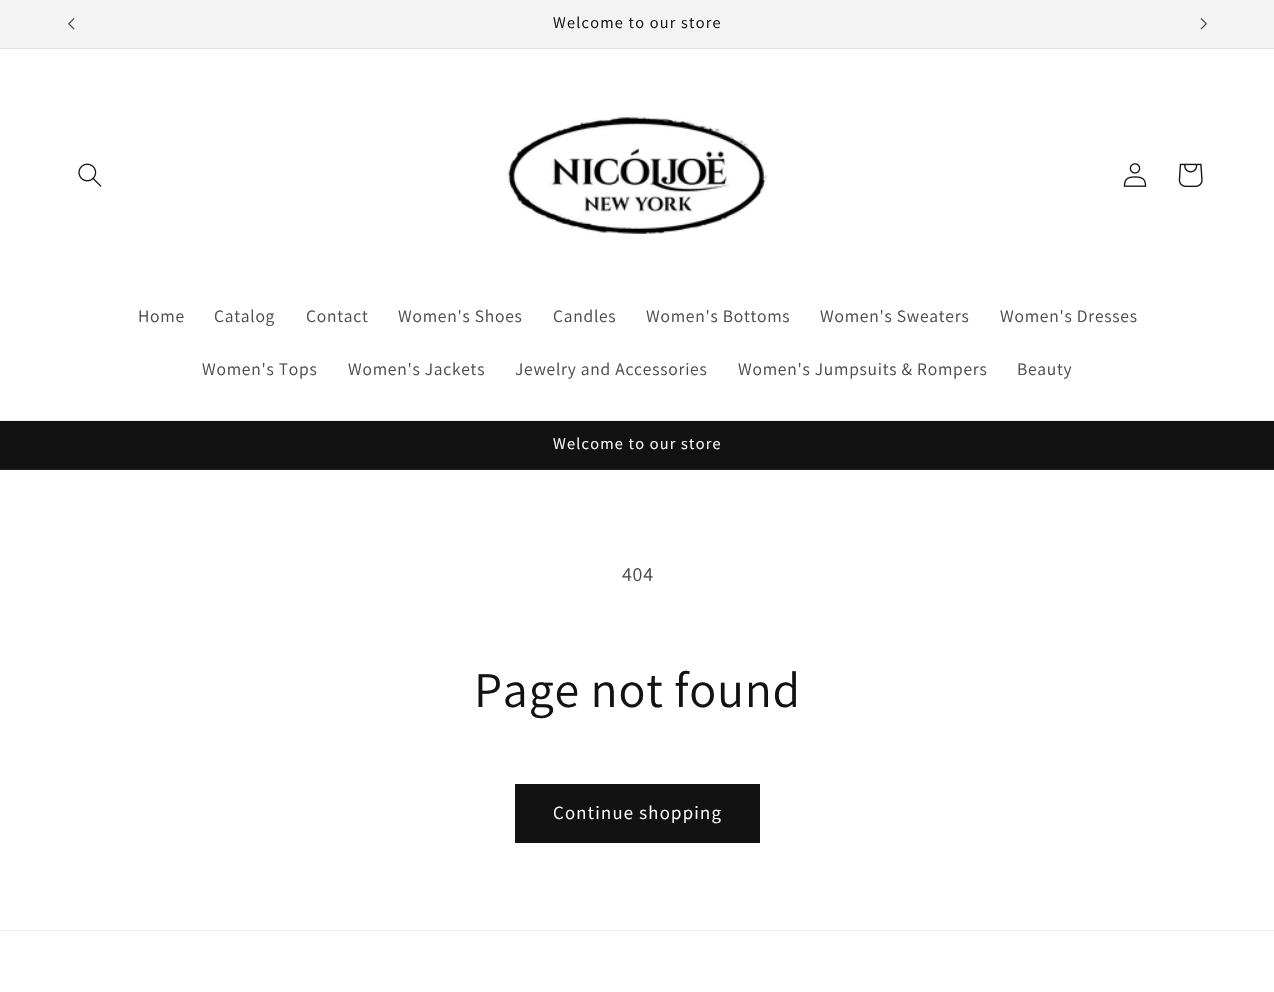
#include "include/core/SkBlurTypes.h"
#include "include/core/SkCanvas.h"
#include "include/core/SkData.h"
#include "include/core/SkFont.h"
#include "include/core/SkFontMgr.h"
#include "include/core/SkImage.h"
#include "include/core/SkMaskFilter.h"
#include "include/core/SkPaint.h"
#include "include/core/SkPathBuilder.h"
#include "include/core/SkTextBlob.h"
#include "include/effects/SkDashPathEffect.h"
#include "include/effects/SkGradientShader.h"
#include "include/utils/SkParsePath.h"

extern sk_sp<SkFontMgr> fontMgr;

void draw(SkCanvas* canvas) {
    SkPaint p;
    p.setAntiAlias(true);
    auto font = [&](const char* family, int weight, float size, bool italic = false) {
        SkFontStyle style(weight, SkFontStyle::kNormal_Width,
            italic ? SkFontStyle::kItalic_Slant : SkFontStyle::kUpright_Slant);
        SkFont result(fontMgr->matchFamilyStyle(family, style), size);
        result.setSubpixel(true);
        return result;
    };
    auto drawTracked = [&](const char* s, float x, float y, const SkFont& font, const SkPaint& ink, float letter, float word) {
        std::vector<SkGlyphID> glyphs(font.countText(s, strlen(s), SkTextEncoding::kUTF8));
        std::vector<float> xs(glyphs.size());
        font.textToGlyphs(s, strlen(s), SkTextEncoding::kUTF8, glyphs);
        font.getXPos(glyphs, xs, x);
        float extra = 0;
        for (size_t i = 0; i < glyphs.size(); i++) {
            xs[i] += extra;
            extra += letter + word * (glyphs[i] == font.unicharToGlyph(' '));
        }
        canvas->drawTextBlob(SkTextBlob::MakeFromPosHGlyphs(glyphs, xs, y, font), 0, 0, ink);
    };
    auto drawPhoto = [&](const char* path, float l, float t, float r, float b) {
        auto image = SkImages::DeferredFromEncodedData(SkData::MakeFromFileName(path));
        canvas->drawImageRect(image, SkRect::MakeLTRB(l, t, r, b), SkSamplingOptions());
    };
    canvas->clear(0xFFFFFFFF);
    p.setColor(0xFFF3F3F3);
    canvas->drawRect(SkRect::MakeLTRB(0, 0, 1274, 48), p);
    p.setColor(0xFFE1E1E1);
    canvas->drawRect(SkRect::MakeLTRB(0, 48, 1274, 49), p);
    drawPhoto("media/1.png", 68, 18, 75, 30);
    auto font1 = font("Assistant", 400, 16.25f);
    p.setColor(0xFF121212);
    drawTracked("Welcome to our store", 553, 28, font1, p, 1.25f, 0);
    drawPhoto("media/2.png", 1200, 18, 1207, 30);
    p.setColor(0xFFECECEC);
    canvas->drawRect(SkRect::MakeLTRB(0, 420, 1274, 421), p);
    drawPhoto("media/3.png", 78, 163, 102, 187);
    drawPhoto("media/4.png", 506, 115, 768, 234);
    drawPhoto("media/5.png", 1123, 163, 1147, 187);
    drawPhoto("media/6.png", 1178, 163, 1203, 187);
    auto font2 = font("Assistant", 400, 17.5f);
    p.setColor(0xFF4D4D4D);
    {
        const struct { const char* s; float x, y; } items[] = {
            {"Home", 138, 322},
            {"Catalog", 214, 322},
            {"Contact", 306, 322},
            {"Women's Shoes", 398, 322},
            {"Candles", 553, 322},
            {"Women's Bottoms", 646, 322},
            {"Women's Sweaters", 820, 322},
            {"Women's Dresses", 1000, 322},
            {"Women's Tops", 202, 375},
            {"Women's Jackets", 348, 375},
            {"Jewelry and Accessories", 515, 375},
            {"Women's Jumpsuits & Rompers", 738, 375},
            {"Beauty", 1017, 375},
        };
        for (auto [s, x, y] : items) {
            drawTracked(s, x, y, font2, p, 0.75f, 0);
        }
    }
    p.setColor(0xFF121212);
    canvas->drawRect(SkRect::MakeLTRB(0, 421, 1274, 469), p);
    p.setColor(0xFF252525);
    canvas->drawRect(SkRect::MakeLTRB(0, 469, 1274, 470), p);
    p.setColor(0xFFFFFFFF);
    drawTracked("Welcome to our store", 553, 449, font1, p, 1.25f, 0);
    auto font3 = font("Assistant", 400, 20);
    p.setColor(0xFF4D4D4D);
    drawTracked("404", 622, 581, font3, p, 0.75f, 0);
    auto font4 = font("Assistant", 400, 50);
    p.setColor(0xFF121212);
    drawTracked("Page not found", 474, 707, font4, p, 0.75f, 0);
    canvas->drawRect(SkRect::MakeLTRB(515, 784, 760, 843), p);
    auto font5 = font("Assistant", 400, 18.75f);
    p.setColor(0xFFFFFFFF);
    drawTracked("Continue shopping", 553, 819, font5, p, 1.25f, 0);
    p.setColor(0xFFECECEC);
    canvas->drawRect(SkRect::MakeLTRB(0, 930, 1274, 931), p);
}
